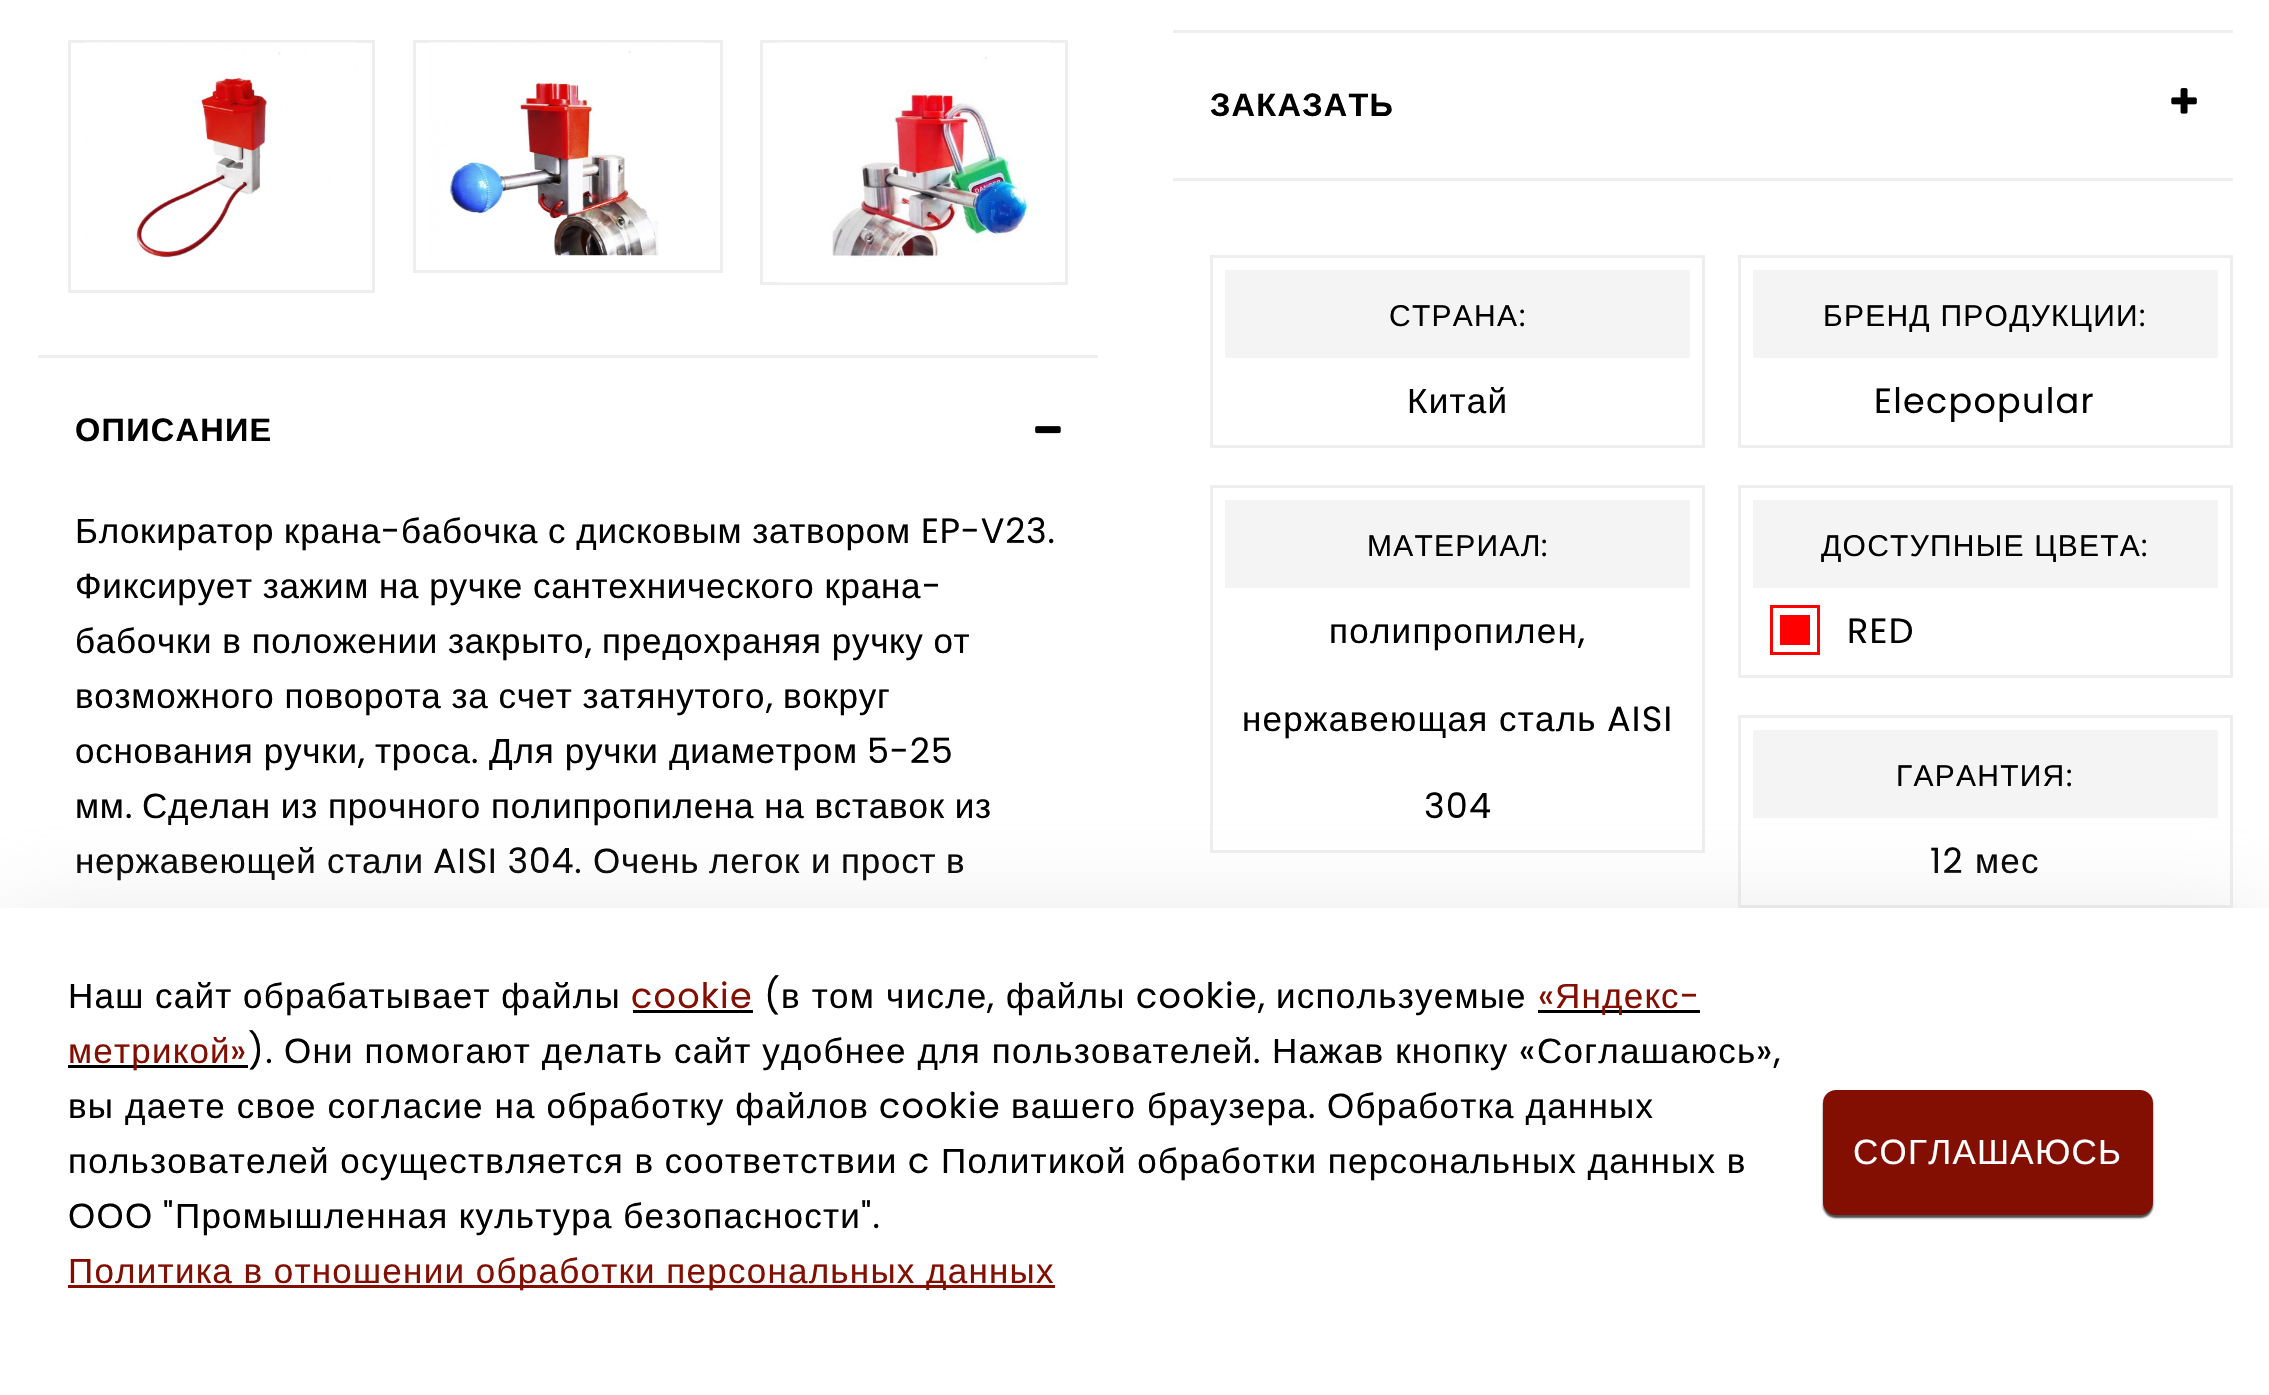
#include "include/core/SkBlurTypes.h"
#include "include/core/SkCanvas.h"
#include "include/core/SkData.h"
#include "include/core/SkFont.h"
#include "include/core/SkFontMgr.h"
#include "include/core/SkImage.h"
#include "include/core/SkMaskFilter.h"
#include "include/core/SkPaint.h"
#include "include/core/SkPathBuilder.h"
#include "include/core/SkTextBlob.h"
#include "include/effects/SkDashPathEffect.h"
#include "include/effects/SkGradientShader.h"
#include "include/utils/SkParsePath.h"

extern sk_sp<SkFontMgr> fontMgr;

void draw(SkCanvas* canvas) {
    SkPaint p;
    p.setAntiAlias(true);
    auto font = [&](const char* family, int weight, float size, bool italic = false) {
        SkFontStyle style(weight, SkFontStyle::kNormal_Width,
            italic ? SkFontStyle::kItalic_Slant : SkFontStyle::kUpright_Slant);
        SkFont result(fontMgr->matchFamilyStyle(family, style), size);
        result.setSubpixel(true);
        return result;
    };
    auto drawTracked = [&](const char* s, float x, float y, const SkFont& font, const SkPaint& ink, float letter, float word) {
        std::vector<SkGlyphID> glyphs(font.countText(s, strlen(s), SkTextEncoding::kUTF8));
        std::vector<float> xs(glyphs.size());
        font.textToGlyphs(s, strlen(s), SkTextEncoding::kUTF8, glyphs);
        font.getXPos(glyphs, xs, x);
        float extra = 0;
        for (size_t i = 0; i < glyphs.size(); i++) {
            xs[i] += extra;
            extra += letter + word * (glyphs[i] == font.unicharToGlyph(' '));
        }
        canvas->drawTextBlob(SkTextBlob::MakeFromPosHGlyphs(glyphs, xs, y, font), 0, 0, ink);
    };
    auto drawPhoto = [&](const char* path, float l, float t, float r, float b) {
        auto image = SkImages::DeferredFromEncodedData(SkData::MakeFromFileName(path));
        canvas->drawImageRect(image, SkRect::MakeLTRB(l, t, r, b), SkSamplingOptions());
    };
    canvas->clear(0xFFFFFFFF);
    p.setStyle(SkPaint::kStroke_Style);
    p.setStrokeWidth(3);
    p.setColor(0xFFEEEEEE);
    canvas->drawRect(SkRect::MakeLTRB(69.5f, 41.5f, 373.5f, 291.5f), p);
    drawPhoto("media/1.png", 85, 42, 358, 260);
    canvas->drawRect(SkRect::MakeLTRB(414.5f, 41.5f, 721.5f, 271.5f), p);
    drawPhoto("media/2.png", 430, 42, 705, 256);
    canvas->drawRect(SkRect::MakeLTRB(761.5f, 41.5f, 1066.5f, 283.5f), p);
    drawPhoto("media/3.png", 777, 42, 1050, 283);
    p.setStyle(SkPaint::kFill_Style);
    canvas->drawRect(SkRect::MakeLTRB(38, 355, 1098, 358), p);
    auto font1 = font("Liberation Sans", 700, 32.5f);
    p.setColor(0xFF000000);
    drawTracked("ОПИСАНИЕ", 75, 441, font1, p, 1.25f, 0);
    drawPhoto("media/4.png", 1035, 426, 1061, 434);
    auto font2 = font("Liberation Sans", 400, 35);
    drawTracked("Блокиратор крана", 75, 543, font2, p, 0.75f, -0.5f);
    auto font3 = font("Poppins", 400, 35);
    drawTracked("-", 381, 543, font3, p, 0.75f, 0);
    drawTracked("бабочка", 401, 543, font2, p, 0.75f, 0);
    drawTracked("с дисковым затвором", 548, 543, font2, p, 0.75f, -0.5f);
    drawTracked("EP-V23.", 921, 543, font3, p, 0.75f, 0);
    drawTracked("Фиксирует зажим на ручке сантехнического крана", 75, 598, font2, p, 0.75f, -0.5f);
    drawTracked("-", 922, 598, font3, p, 0.75f, 0);
    drawTracked("бабочки в положении закрыто", 75, 653, font2, p, 0.75f, -0.5f);
    drawTracked(",", 585, 653, font3, p, 0.75f, 0);
    drawTracked("предохраняя ручку от", 602, 653, font2, p, 0.75f, -0.5f);
    drawTracked("возможного поворота за счет затянутого", 75, 708, font2, p, 0.75f, -0.5f);
    drawTracked(",", 766, 708, font3, p, 0.75f, 0);
    drawTracked("вокруг", 783, 708, font2, p, 0.75f, 0);
    drawTracked("основания ручки", 75, 763, font2, p, 0.75f, 0);
    drawTracked(",", 358, 763, font3, p, 0.75f, 0);
    drawTracked("троса", 375, 763, font2, p, 0.75f, 0);
    drawTracked(".", 471, 763, font3, p, 0.75f, 0);
    drawTracked("Для ручки диаметром", 489, 763, font2, p, 0.75f, 0);
    drawTracked("5-25", 867, 763, font3, p, 0.75f, 0);
    drawTracked("мм", 75, 818, font2, p, 0.75f, 0);
    drawTracked(".", 125, 818, font3, p, 0.75f, 0);
    drawTracked("Сделан из прочного полипропилена на вставок из", 142, 818, font2, p, 0.75f, -0.5f);
    drawTracked("нержавеющей", 75, 873, font2, p, 0.75f, 0);
    drawTracked("стали", 327, 873, font2, p, 0.75f, 0);
    drawTracked("AISI 304.", 433, 873, font3, p, 0.75f, 0);
    {
        const struct { const char* s; float x, y; } items[] = {
            {"Очень", 593, 873},
            {"легок", 709, 873},
            {"и", 811, 873},
            {"прост", 841, 873},
            {"в", 946, 873},
        };
        for (auto [s, x, y] : items) {
            drawTracked(s, x, y, font2, p, 0.75f, 0);
        }
    }
    p.setColor(0xFFEEEEEE);
    canvas->drawRect(SkRect::MakeLTRB(1173, 30, 2233, 33), p);
    canvas->drawRect(SkRect::MakeLTRB(1173, 178, 2233, 181), p);
    p.setColor(0xFF000000);
    drawTracked("ЗАКАЗАТЬ", 1210, 116, font1, p, 1.25f, 0);
    drawPhoto("media/5.png", 2171, 88, 2197, 114);
    p.setStyle(SkPaint::kStroke_Style);
    p.setColor(0xFFEEEEEE);
    canvas->drawRect(SkRect::MakeLTRB(1211.5f, 256.5f, 1703.5f, 446.5f), p);
    p.setStyle(SkPaint::kFill_Style);
    p.setColor(0xFFF4F4F4);
    canvas->drawRect(SkRect::MakeLTRB(1225, 270, 1690, 358), p);
    auto font4 = font("Liberation Sans", 400, 30);
    p.setColor(0xFF000000);
    drawTracked("СТРАНА", 1389, 326, font4, p, 1.25f, 0);
    auto font5 = font("Poppins", 400, 30);
    drawTracked(":", 1519, 326, font5, p, 1.25f, 0);
    drawTracked("Китай", 1407, 413, font2, p, 1.25f, 0);
    p.setStyle(SkPaint::kStroke_Style);
    p.setColor(0xFFEEEEEE);
    canvas->drawRect(SkRect::MakeLTRB(1739.5f, 256.5f, 2231.5f, 446.5f), p);
    p.setStyle(SkPaint::kFill_Style);
    p.setColor(0xFFF4F4F4);
    canvas->drawRect(SkRect::MakeLTRB(1753, 270, 2218, 358), p);
    p.setColor(0xFF000000);
    drawTracked("БРЕНД ПРОДУКЦИИ", 1823, 326, font4, p, 1.25f, 0);
    drawTracked(":", 2139, 326, font5, p, 1.25f, 0);
    drawTracked("Elecpopular", 1874, 413, font3, p, 1.25f, 0);
    p.setStyle(SkPaint::kStroke_Style);
    p.setColor(0xFFEEEEEE);
    canvas->drawRect(SkRect::MakeLTRB(1211.5f, 486.5f, 1703.5f, 851.5f), p);
    p.setStyle(SkPaint::kFill_Style);
    p.setColor(0xFFF4F4F4);
    canvas->drawRect(SkRect::MakeLTRB(1225, 500, 1690, 588), p);
    p.setColor(0xFF000000);
    drawTracked("МАТЕРИАЛ", 1367, 556, font4, p, 1.25f, 0);
    drawTracked(":", 1541, 556, font5, p, 1.25f, 0);
    drawTracked("полипропилен", 1329, 643, font2, p, 1.25f, 0);
    drawTracked(",", 1578, 643, font3, p, 1.25f, 0);
    drawTracked("нержавеющая сталь", 1242, 731, font2, p, 1.25f, -0.5f);
    drawTracked("AISI", 1607, 731, font3, p, 1.25f, 0);
    drawTracked("304", 1424, 818, font3, p, 1.25f, 0);
    p.setStyle(SkPaint::kStroke_Style);
    p.setColor(0xFFEEEEEE);
    canvas->drawRect(SkRect::MakeLTRB(1739.5f, 486.5f, 2231.5f, 676.5f), p);
    p.setStyle(SkPaint::kFill_Style);
    p.setColor(0xFFF4F4F4);
    canvas->drawRect(SkRect::MakeLTRB(1753, 500, 2218, 588), p);
    p.setColor(0xFF000000);
    drawTracked("ДОСТУПНЫЕ ЦВЕТА", 1821, 556, font4, p, 1.25f, 0);
    drawTracked(":", 2141, 556, font5, p, 1.25f, 0);
    p.setStyle(SkPaint::kStroke_Style);
    p.setColor(0xFFFF0000);
    canvas->drawRect(SkRect::MakeLTRB(1771.5f, 606.5f, 1818.5f, 653.5f), p);
    p.setStyle(SkPaint::kFill_Style);
    canvas->drawRect(SkRect::MakeLTRB(1780, 615, 1810, 645), p);
    p.setColor(0xFF000000);
    drawTracked("RED", 1847, 643, font3, p, 1.25f, 0);
    p.setStyle(SkPaint::kStroke_Style);
    p.setColor(0xFFEEEEEE);
    canvas->drawRect(SkRect::MakeLTRB(1739.5f, 716.5f, 2231.5f, 906.5f), p);
    p.setStyle(SkPaint::kFill_Style);
    p.setColor(0xFFF4F4F4);
    canvas->drawRect(SkRect::MakeLTRB(1753, 730, 2218, 818), p);
    p.setColor(0xFF000000);
    drawTracked("ГАРАНТИЯ", 1896, 786, font4, p, 1.25f, 0);
    drawTracked(":", 2066, 786, font5, p, 1.25f, 0);
    drawTracked("12", 1930, 873, font3, p, 1.25f, 0);
    drawTracked("мес", 1975, 873, font2, p, 1.25f, 0);
    p.setColor(0x80C4C4C4);
    p.setMaskFilter(SkMaskFilter::MakeBlur(kNormal_SkBlurStyle, 50));
    canvas->drawRect(SkRect::MakeLTRB(0, 928, 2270, 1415), p);
    p.setMaskFilter(nullptr);
    p.setColor(0xFFFFFFFF);
    canvas->drawRect(SkRect::MakeLTRB(0, 908, 2269, 1395), p);
    p.setColor(0xFF000000);
    drawTracked("Наш сайт обрабатывает файлы", 68, 1008, font2, p, 1.25f, -0.5f);
    p.setColor(0xFF830E02);
    drawTracked("cookie", 631, 1008, font3, p, 1.25f, 0);
    p.setColor(0xFF000000);
    canvas->drawRect(SkRect::MakeLTRB(633, 1010, 753, 1013), p);
    drawTracked("(", 764, 1008, font3, p, 1.25f, 0);
    drawTracked("в том числе", 781, 1008, font2, p, 1.25f, 0);
    drawTracked("файлы", 1006, 1008, font2, p, 1.25f, 0);
    drawTracked("cookie,", 1136, 1008, font3, p, 1.25f, 0);
    drawTracked("используемые", 1276, 1008, font2, p, 1.25f, 0);
    p.setColor(0xFF830E02);
    drawTracked("«", 1538, 1008, font3, p, 1.25f, 0);
    p.setColor(0xFF000000);
    canvas->drawRect(SkRect::MakeLTRB(1538, 1010, 1700, 1013), p);
    p.setColor(0xFF830E02);
    drawTracked("Яндекс", 1555, 1008, font2, p, 1.25f, 0);
    drawTracked("-", 1680, 1008, font3, p, 1.25f, 0);
    p.setColor(0xFF000000);
    drawTracked(",", 987, 1008, font3, p, 1.25f, 0);
    canvas->drawRect(SkRect::MakeLTRB(68, 1065, 248, 1068), p);
    p.setColor(0xFF830E02);
    drawTracked("метрикой", 68, 1063, font2, p, 1.25f, 0);
    drawTracked("»", 230, 1063, font3, p, 1.25f, 0);
    p.setColor(0xFF000000);
    drawTracked(").", 248, 1063, font3, p, 1.25f, 0);
    drawTracked("Они помогают делать сайт удобнее для пользователей", 284, 1063, font2, p, 1.25f, -0.25f);
    drawTracked(".", 1253, 1063, font3, p, 1.25f, 0);
    drawTracked("Нажав кнопку", 1272, 1063, font2, p, 1.25f, -0.25f);
    drawTracked("«", 1519, 1063, font3, p, 1.25f, 0);
    drawTracked("Соглашаюсь", 1537, 1063, font2, p, 1.25f, 0);
    drawTracked("»,", 1756, 1063, font3, p, 1.25f, 0);
    drawTracked("вы даете свое согласие на обработку файлов", 68, 1118, font2, p, 1.25f, -0.25f);
    drawTracked("cookie", 879, 1118, font3, p, 1.25f, 0);
    drawTracked("вашего браузера", 1011, 1118, font2, p, 1.25f, -0.25f);
    drawTracked(".", 1308, 1118, font3, p, 1.25f, 0);
    drawTracked("Обработка данных", 1327, 1118, font2, p, 1.25f, -0.25f);
    drawTracked("пользователей осуществляется в соответствии", 68, 1173, font2, p, 1.25f, -0.5f);
    drawTracked("c", 908, 1173, font3, p, 1.25f, 0);
    drawTracked("Политикой обработки персональных данных в", 941, 1173, font2, p, 1.25f, -0.5f);
    drawTracked("ООО", 68, 1228, font2, p, 1.25f, 0);
    drawTracked("\"", 163, 1228, font3, p, 1.25f, 0);
    drawTracked("Промышленная культура безопасности", 175, 1228, font2, p, 1.25f, -0.5f);
    drawTracked("\".", 861, 1228, font3, p, 1.25f, 0);
    p.setColor(0xFF830E02);
    canvas->drawRect(SkRect::MakeLTRB(68, 1285, 1055, 1288), p);
    drawTracked("Политика в отношении обработки персональных данных", 68, 1283, font2, p, 1.25f, -0.5f);
    p.setColor(0xFF4C4C4C);
    p.setMaskFilter(SkMaskFilter::MakeBlur(kNormal_SkBlurStyle, 1));
    canvas->drawRoundRect(SkRect::MakeLTRB(1823, 1093, 2153, 1218), 13, 13, p);
    p.setMaskFilter(nullptr);
    p.setColor(0xFF830E02);
    canvas->drawRoundRect(SkRect::MakeLTRB(1823, 1090, 2153, 1215), 13, 13, p);
    p.setColor(0xFFFFFFFF);
    drawTracked("СОГЛАШАЮСЬ", 1853, 1164, font2, p, 1.25f, 0);
}
